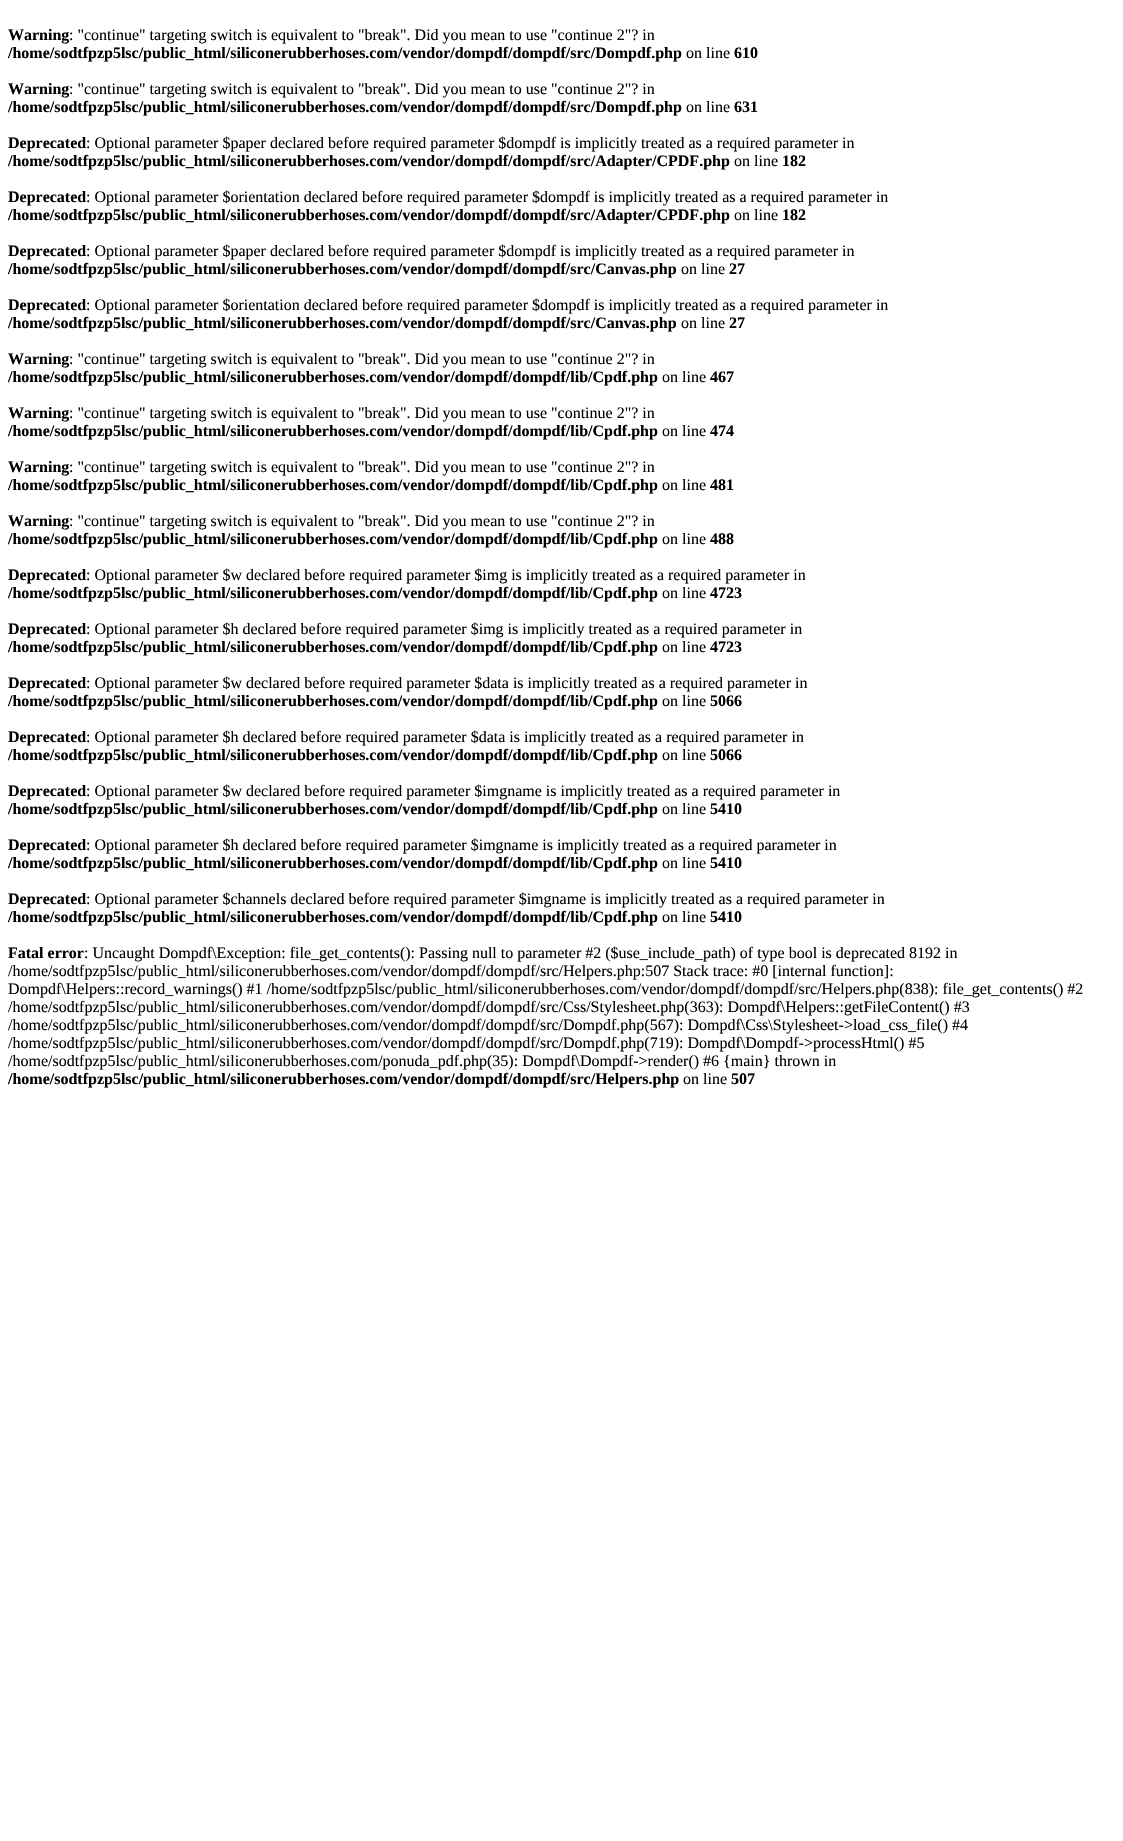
#include "include/core/SkBlurTypes.h"
#include "include/core/SkCanvas.h"
#include "include/core/SkData.h"
#include "include/core/SkFont.h"
#include "include/core/SkFontMgr.h"
#include "include/core/SkImage.h"
#include "include/core/SkMaskFilter.h"
#include "include/core/SkPaint.h"
#include "include/core/SkPathBuilder.h"
#include "include/core/SkTextBlob.h"
#include "include/effects/SkDashPathEffect.h"
#include "include/effects/SkGradientShader.h"
#include "include/utils/SkParsePath.h"

extern sk_sp<SkFontMgr> fontMgr;

void draw(SkCanvas* canvas) {
    SkPaint p;
    p.setAntiAlias(true);
    auto font = [&](const char* family, int weight, float size, bool italic = false) {
        SkFontStyle style(weight, SkFontStyle::kNormal_Width,
            italic ? SkFontStyle::kItalic_Slant : SkFontStyle::kUpright_Slant);
        SkFont result(fontMgr->matchFamilyStyle(family, style), size);
        result.setSubpixel(true);
        return result;
    };
    canvas->clear(0xFFFFFFFF);
    auto font1 = font("Liberation Serif", 700, 16);
    p.setColor(0xFF000000);
    canvas->drawString("Warning", 8, 40, font1, p);
    auto font2 = font("Liberation Serif", 400, 16);
    canvas->drawString(": \"continue\" targeting switch is equivalent to \"break\". Did you mean to use \"continue 2\"? in", 69, 40, font2, p);
    canvas->drawString("/home/sodtfpzp5lsc/public_html/siliconerubberhoses.com/vendor/dompdf/dompdf/src/Dompdf.php", 8, 58, font1, p);
    canvas->drawString("on line", 686, 58, font2, p);
    canvas->drawString("610", 734, 58, font1, p);
    canvas->drawString("Warning", 8, 94, font1, p);
    canvas->drawString(": \"continue\" targeting switch is equivalent to \"break\". Did you mean to use \"continue 2\"? in", 69, 94, font2, p);
    canvas->drawString("/home/sodtfpzp5lsc/public_html/siliconerubberhoses.com/vendor/dompdf/dompdf/src/Dompdf.php", 8, 112, font1, p);
    canvas->drawString("on line", 686, 112, font2, p);
    canvas->drawString("631", 734, 112, font1, p);
    canvas->drawString("Deprecated", 8, 148, font1, p);
    canvas->drawString(": Optional parameter $paper declared before required parameter $dompdf is implicitly treated as a required parameter in", 86, 148, font2, p);
    canvas->drawString("/home/sodtfpzp5lsc/public_html/siliconerubberhoses.com/vendor/dompdf/dompdf/src/Adapter/CPDF.php", 8, 166, font1, p);
    canvas->drawString("on line", 734, 166, font2, p);
    canvas->drawString("182", 782, 166, font1, p);
    canvas->drawString("Deprecated", 8, 202, font1, p);
    canvas->drawString(": Optional parameter $orientation declared before required parameter $dompdf is implicitly treated as a required parameter in", 86, 202, font2, p);
    canvas->drawString("/home/sodtfpzp5lsc/public_html/siliconerubberhoses.com/vendor/dompdf/dompdf/src/Adapter/CPDF.php", 8, 220, font1, p);
    canvas->drawString("on line", 734, 220, font2, p);
    canvas->drawString("182", 782, 220, font1, p);
    canvas->drawString("Deprecated", 8, 256, font1, p);
    canvas->drawString(": Optional parameter $paper declared before required parameter $dompdf is implicitly treated as a required parameter in", 86, 256, font2, p);
    canvas->drawString("/home/sodtfpzp5lsc/public_html/siliconerubberhoses.com/vendor/dompdf/dompdf/src/Canvas.php", 8, 274, font1, p);
    canvas->drawString("on line", 681, 274, font2, p);
    canvas->drawString("27", 729, 274, font1, p);
    canvas->drawString("Deprecated", 8, 310, font1, p);
    canvas->drawString(": Optional parameter $orientation declared before required parameter $dompdf is implicitly treated as a required parameter in", 86, 310, font2, p);
    canvas->drawString("/home/sodtfpzp5lsc/public_html/siliconerubberhoses.com/vendor/dompdf/dompdf/src/Canvas.php", 8, 328, font1, p);
    canvas->drawString("on line", 681, 328, font2, p);
    canvas->drawString("27", 729, 328, font1, p);
    canvas->drawString("Warning", 8, 364, font1, p);
    canvas->drawString(": \"continue\" targeting switch is equivalent to \"break\". Did you mean to use \"continue 2\"? in", 69, 364, font2, p);
    canvas->drawString("/home/sodtfpzp5lsc/public_html/siliconerubberhoses.com/vendor/dompdf/dompdf/lib/Cpdf.php", 8, 382, font1, p);
    canvas->drawString("on line", 662, 382, font2, p);
    canvas->drawString("467", 710, 382, font1, p);
    canvas->drawString("Warning", 8, 418, font1, p);
    canvas->drawString(": \"continue\" targeting switch is equivalent to \"break\". Did you mean to use \"continue 2\"? in", 69, 418, font2, p);
    canvas->drawString("/home/sodtfpzp5lsc/public_html/siliconerubberhoses.com/vendor/dompdf/dompdf/lib/Cpdf.php", 8, 436, font1, p);
    canvas->drawString("on line", 662, 436, font2, p);
    canvas->drawString("474", 710, 436, font1, p);
    canvas->drawString("Warning", 8, 472, font1, p);
    canvas->drawString(": \"continue\" targeting switch is equivalent to \"break\". Did you mean to use \"continue 2\"? in", 69, 472, font2, p);
    canvas->drawString("/home/sodtfpzp5lsc/public_html/siliconerubberhoses.com/vendor/dompdf/dompdf/lib/Cpdf.php", 8, 490, font1, p);
    canvas->drawString("on line", 662, 490, font2, p);
    canvas->drawString("481", 710, 490, font1, p);
    canvas->drawString("Warning", 8, 526, font1, p);
    canvas->drawString(": \"continue\" targeting switch is equivalent to \"break\". Did you mean to use \"continue 2\"? in", 69, 526, font2, p);
    canvas->drawString("/home/sodtfpzp5lsc/public_html/siliconerubberhoses.com/vendor/dompdf/dompdf/lib/Cpdf.php", 8, 544, font1, p);
    canvas->drawString("on line", 662, 544, font2, p);
    canvas->drawString("488", 710, 544, font1, p);
    canvas->drawString("Deprecated", 8, 580, font1, p);
    canvas->drawString(": Optional parameter $w declared before required parameter $img is implicitly treated as a required parameter in", 86, 580, font2, p);
    canvas->drawString("/home/sodtfpzp5lsc/public_html/siliconerubberhoses.com/vendor/dompdf/dompdf/lib/Cpdf.php", 8, 598, font1, p);
    canvas->drawString("on line", 662, 598, font2, p);
    canvas->drawString("4723", 710, 598, font1, p);
    canvas->drawString("Deprecated", 8, 634, font1, p);
    canvas->drawString(": Optional parameter $h declared before required parameter $img is implicitly treated as a required parameter in", 86, 634, font2, p);
    canvas->drawString("/home/sodtfpzp5lsc/public_html/siliconerubberhoses.com/vendor/dompdf/dompdf/lib/Cpdf.php", 8, 652, font1, p);
    canvas->drawString("on line", 662, 652, font2, p);
    canvas->drawString("4723", 710, 652, font1, p);
    canvas->drawString("Deprecated", 8, 688, font1, p);
    canvas->drawString(": Optional parameter $w declared before required parameter $data is implicitly treated as a required parameter in", 86, 688, font2, p);
    canvas->drawString("/home/sodtfpzp5lsc/public_html/siliconerubberhoses.com/vendor/dompdf/dompdf/lib/Cpdf.php", 8, 706, font1, p);
    canvas->drawString("on line", 662, 706, font2, p);
    canvas->drawString("5066", 710, 706, font1, p);
    canvas->drawString("Deprecated", 8, 742, font1, p);
    canvas->drawString(": Optional parameter $h declared before required parameter $data is implicitly treated as a required parameter in", 86, 742, font2, p);
    canvas->drawString("/home/sodtfpzp5lsc/public_html/siliconerubberhoses.com/vendor/dompdf/dompdf/lib/Cpdf.php", 8, 760, font1, p);
    canvas->drawString("on line", 662, 760, font2, p);
    canvas->drawString("5066", 710, 760, font1, p);
    canvas->drawString("Deprecated", 8, 796, font1, p);
    canvas->drawString(": Optional parameter $w declared before required parameter $imgname is implicitly treated as a required parameter in", 86, 796, font2, p);
    canvas->drawString("/home/sodtfpzp5lsc/public_html/siliconerubberhoses.com/vendor/dompdf/dompdf/lib/Cpdf.php", 8, 814, font1, p);
    canvas->drawString("on line", 662, 814, font2, p);
    canvas->drawString("5410", 710, 814, font1, p);
    canvas->drawString("Deprecated", 8, 850, font1, p);
    canvas->drawString(": Optional parameter $h declared before required parameter $imgname is implicitly treated as a required parameter in", 86, 850, font2, p);
    canvas->drawString("/home/sodtfpzp5lsc/public_html/siliconerubberhoses.com/vendor/dompdf/dompdf/lib/Cpdf.php", 8, 868, font1, p);
    canvas->drawString("on line", 662, 868, font2, p);
    canvas->drawString("5410", 710, 868, font1, p);
    canvas->drawString("Deprecated", 8, 904, font1, p);
    canvas->drawString(": Optional parameter $channels declared before required parameter $imgname is implicitly treated as a required parameter in", 86, 904, font2, p);
    canvas->drawString("/home/sodtfpzp5lsc/public_html/siliconerubberhoses.com/vendor/dompdf/dompdf/lib/Cpdf.php", 8, 922, font1, p);
    canvas->drawString("on line", 662, 922, font2, p);
    canvas->drawString("5410", 710, 922, font1, p);
    canvas->drawString("Fatal error", 8, 958, font1, p);
    {
        const struct { const char* s; float x, y; } items[] = {
            {": Uncaught Dompdf\\Exception: file_get_contents(): Passing null to parameter #2 ($use_include_path) of type bool is deprecated 8192 in", 84, 958},
            {"/home/sodtfpzp5lsc/public_html/siliconerubberhoses.com/vendor/dompdf/dompdf/src/Helpers.php:507 Stack trace: #0 [internal function]:", 8, 976},
            {"Dompdf\\Helpers::record_warnings() #1 /home/sodtfpzp5lsc/public_html/siliconerubberhoses.com/vendor/dompdf/dompdf/src/Helpers.php(838): file_get_contents() #2", 8, 994},
            {"/home/sodtfpzp5lsc/public_html/siliconerubberhoses.com/vendor/dompdf/dompdf/src/Css/Stylesheet.php(363): Dompdf\\Helpers::getFileContent() #3", 8, 1012},
            {"/home/sodtfpzp5lsc/public_html/siliconerubberhoses.com/vendor/dompdf/dompdf/src/Dompdf.php(567): Dompdf\\Css\\Stylesheet->load_css_file() #4", 8, 1030},
            {"/home/sodtfpzp5lsc/public_html/siliconerubberhoses.com/vendor/dompdf/dompdf/src/Dompdf.php(719): Dompdf\\Dompdf->processHtml() #5", 8, 1048},
            {"/home/sodtfpzp5lsc/public_html/siliconerubberhoses.com/ponuda_pdf.php(35): Dompdf\\Dompdf->render() #6 {main} thrown in", 8, 1066},
        };
        for (auto [s, x, y] : items) {
            canvas->drawString(s, x, y, font2, p);
        }
    }
    canvas->drawString("/home/sodtfpzp5lsc/public_html/siliconerubberhoses.com/vendor/dompdf/dompdf/src/Helpers.php", 8, 1084, font1, p);
    canvas->drawString("on line", 683, 1084, font2, p);
    canvas->drawString("507", 731, 1084, font1, p);
}
